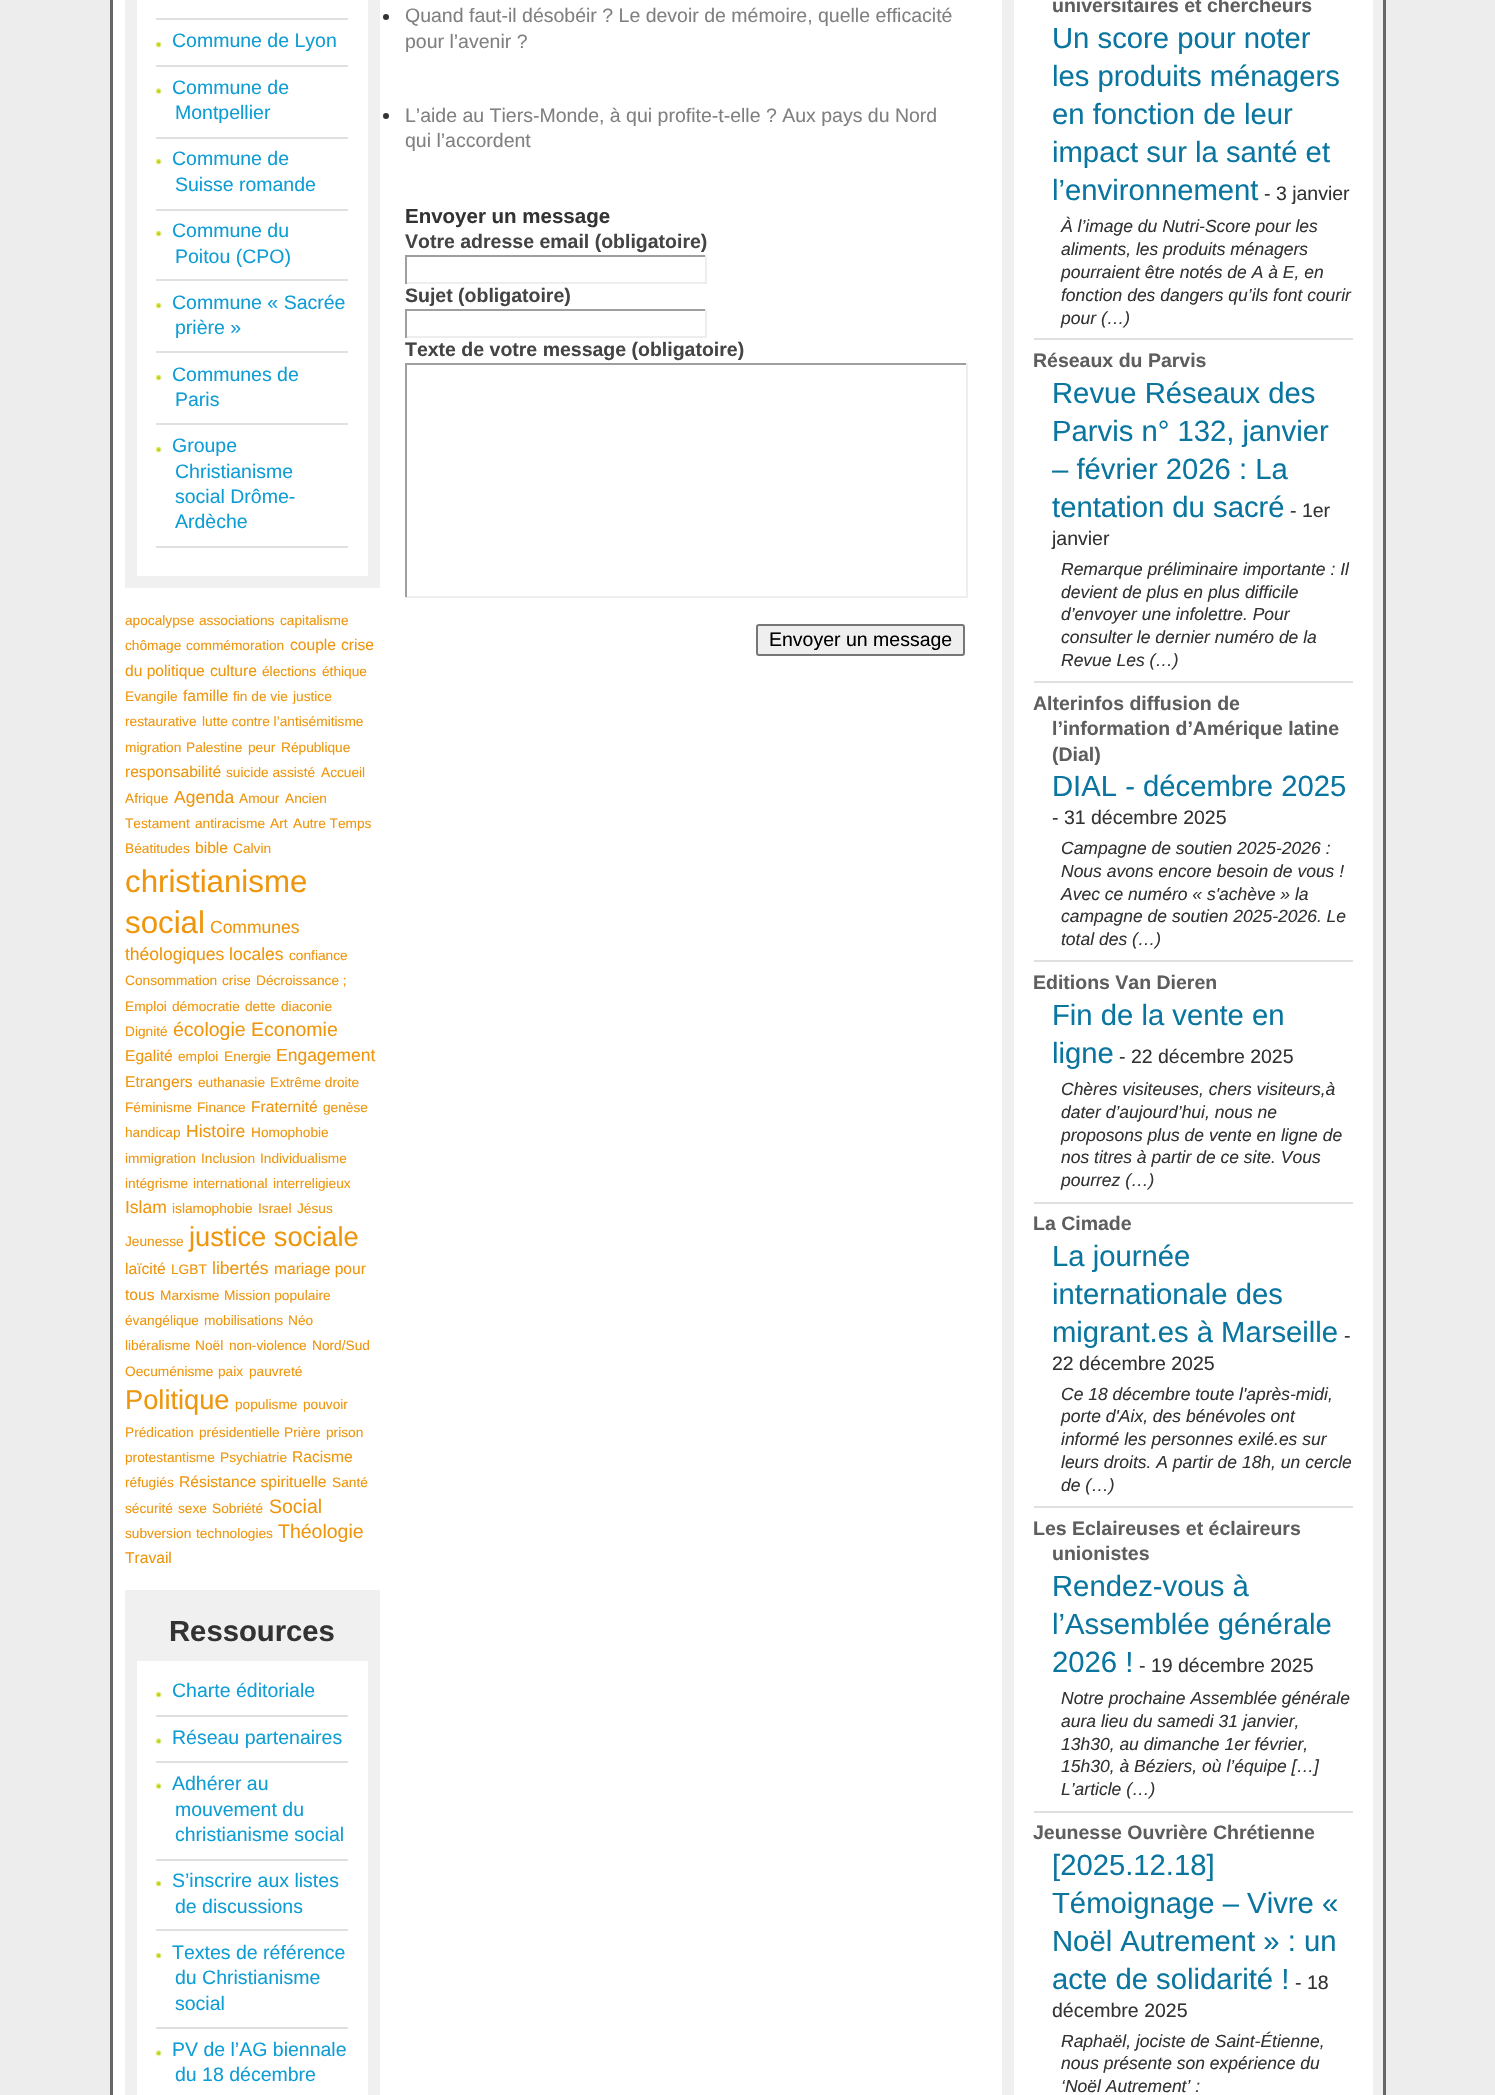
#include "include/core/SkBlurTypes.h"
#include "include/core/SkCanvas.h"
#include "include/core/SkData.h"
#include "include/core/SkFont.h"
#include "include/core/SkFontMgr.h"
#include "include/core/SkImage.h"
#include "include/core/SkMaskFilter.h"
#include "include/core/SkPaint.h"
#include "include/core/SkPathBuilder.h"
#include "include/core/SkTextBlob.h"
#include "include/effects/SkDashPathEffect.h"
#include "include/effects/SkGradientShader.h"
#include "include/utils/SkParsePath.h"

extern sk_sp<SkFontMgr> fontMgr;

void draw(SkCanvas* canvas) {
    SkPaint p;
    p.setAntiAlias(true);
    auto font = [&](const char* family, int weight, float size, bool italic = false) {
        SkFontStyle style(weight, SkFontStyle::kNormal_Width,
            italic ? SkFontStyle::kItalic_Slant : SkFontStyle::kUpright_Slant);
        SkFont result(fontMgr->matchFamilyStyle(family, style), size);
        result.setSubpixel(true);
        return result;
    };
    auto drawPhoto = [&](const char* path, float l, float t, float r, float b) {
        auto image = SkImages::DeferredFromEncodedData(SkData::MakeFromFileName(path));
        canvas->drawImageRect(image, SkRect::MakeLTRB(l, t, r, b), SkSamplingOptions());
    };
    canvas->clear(0xFFEDEDED);
    p.setColor(0xFFFFFFFF);
    canvas->drawRect(SkRect::MakeLTRB(113, 0, 1002, 2095), p);
    p.setStyle(SkPaint::kStroke_Style);
    p.setStrokeWidth(3);
    p.setColor(0xFF666666);
    canvas->drawRect(SkRect::MakeLTRB(111.5f, -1.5f, 1384.5f, 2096.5f), p);
    p.setStyle(SkPaint::kFill_Style);
    {
        const struct { float l, t, r, b; SkColor color; } items[] = {
            {125, 0, 380, 588, 0xFFF0F0F0},
            {137, 0, 368, 576, 0xFFFFFFFF},
            {156, 18, 348, 20, 0xFFE0E0E0},
            {156, 65, 348, 67, 0xFFE0E0E0},
        };
        for (auto [l, t, r, b, color] : items) {
            p.setColor(color);
            canvas->drawRect(SkRect::MakeLTRB(l, t, r, b), p);
        }
    }
    drawPhoto("media/1.png", 156, 42, 162, 48);
    auto font1 = font("Liberation Sans", 400, 19.5f);
    p.setColor(0xFF0E9DD5);
    canvas->drawString("Commune de Lyon", 172, 47, font1, p);
    p.setColor(0xFFE0E0E0);
    canvas->drawRect(SkRect::MakeLTRB(156, 137, 348, 139), p);
    drawPhoto("media/2.png", 156, 88, 162, 95);
    p.setColor(0xFF0E9DD5);
    canvas->drawString("Commune de", 172, 94, font1, p);
    canvas->drawString("Montpellier", 175, 119, font1, p);
    p.setColor(0xFFE0E0E0);
    canvas->drawRect(SkRect::MakeLTRB(156, 209, 348, 211), p);
    drawPhoto("media/1.png", 156, 159, 162, 165);
    p.setColor(0xFF0E9DD5);
    canvas->drawString("Commune de", 172, 165, font1, p);
    canvas->drawString("Suisse romande", 175, 191, font1, p);
    p.setColor(0xFFE0E0E0);
    canvas->drawRect(SkRect::MakeLTRB(156, 279, 348, 281), p);
    drawPhoto("media/1.png", 156, 231, 162, 237);
    p.setColor(0xFF0E9DD5);
    canvas->drawString("Commune du", 172, 237, font1, p);
    canvas->drawString("Poitou (CPO)", 175, 263, font1, p);
    p.setColor(0xFFE0E0E0);
    canvas->drawRect(SkRect::MakeLTRB(156, 351, 348, 353), p);
    drawPhoto("media/1.png", 156, 303, 162, 309);
    p.setColor(0xFF0E9DD5);
    canvas->drawString("Commune « Sacrée", 172, 309, font1, p);
    canvas->drawString("prière »", 175, 334, font1, p);
    p.setColor(0xFFE0E0E0);
    canvas->drawRect(SkRect::MakeLTRB(156, 423, 348, 425), p);
    drawPhoto("media/1.png", 156, 375, 162, 381);
    p.setColor(0xFF0E9DD5);
    canvas->drawString("Communes de", 172, 381, font1, p);
    canvas->drawString("Paris", 175, 406, font1, p);
    p.setColor(0xFFE0E0E0);
    canvas->drawRect(SkRect::MakeLTRB(156, 546, 348, 548), p);
    drawPhoto("media/1.png", 156, 447, 162, 453);
    p.setColor(0xFF0E9DD5);
    {
        const struct { const char* s; float x, y; } items[] = {
            {"Groupe", 172, 452},
            {"Christianisme", 175, 478},
            {"social Drôme-", 175, 503},
            {"Ardèche", 175, 528},
        };
        for (auto [s, x, y] : items) {
            canvas->drawString(s, x, y, font1, p);
        }
    }
    auto font2 = font("Liberation Sans", 400, 13.7f);
    p.setColor(0xFFEE960D);
    {
        const struct { const char* s; float x, y; } items[] = {
            {"apocalypse", 125, 625},
            {"associations", 199, 625},
            {"capitalisme", 280, 625},
            {"chômage", 125, 650},
            {"commémoration", 186, 650},
        };
        for (auto [s, x, y] : items) {
            canvas->drawString(s, x, y, font2, p);
        }
    }
    auto font3 = font("Liberation Sans", 400, 15.6f);
    {
        const struct { const char* s; float x, y; } items[] = {
            {"couple", 290, 650},
            {"crise", 341, 650},
            {"du politique", 125, 676},
            {"culture", 210, 676},
        };
        for (auto [s, x, y] : items) {
            canvas->drawString(s, x, y, font3, p);
        }
    }
    {
        const struct { const char* s; float x, y; } items[] = {
            {"élections", 262, 676},
            {"éthique", 322, 676},
            {"Evangile", 125, 701},
        };
        for (auto [s, x, y] : items) {
            canvas->drawString(s, x, y, font2, p);
        }
    }
    canvas->drawString("famille", 183, 701, font3, p);
    {
        const struct { const char* s; float x, y; } items[] = {
            {"fin de vie", 233, 701},
            {"justice", 293, 701},
            {"restaurative", 125, 726},
            {"lutte contre l’antisémitisme", 202, 726},
            {"migration", 125, 752},
            {"Palestine", 186, 752},
            {"peur", 248, 752},
            {"République", 281, 752},
        };
        for (auto [s, x, y] : items) {
            canvas->drawString(s, x, y, font2, p);
        }
    }
    canvas->drawString("responsabilité", 125, 777, font3, p);
    {
        const struct { const char* s; float x, y; } items[] = {
            {"suicide assisté", 226, 777},
            {"Accueil", 321, 777},
            {"Afrique", 125, 803},
        };
        for (auto [s, x, y] : items) {
            canvas->drawString(s, x, y, font2, p);
        }
    }
    auto font4 = font("Liberation Sans", 400, 17.5f);
    canvas->drawString("Agenda", 174, 803, font4, p);
    {
        const struct { const char* s; float x, y; } items[] = {
            {"Amour", 239, 803},
            {"Ancien", 285, 803},
            {"Testament", 125, 828},
            {"antiracisme", 195, 828},
            {"Art", 270, 828},
            {"Autre Temps", 293, 828},
            {"Béatitudes", 125, 853},
        };
        for (auto [s, x, y] : items) {
            canvas->drawString(s, x, y, font2, p);
        }
    }
    canvas->drawString("bible", 195, 853, font3, p);
    canvas->drawString("Calvin", 233, 853, font2, p);
    auto font5 = font("Liberation Sans", 400, 31.25f);
    canvas->drawString("christianisme", 125, 892, font5, p);
    canvas->drawString("social", 125, 933, font5, p);
    canvas->drawString("Communes", 210, 933, font4, p);
    canvas->drawString("théologiques locales", 125, 960, font4, p);
    {
        const struct { const char* s; float x, y; } items[] = {
            {"confiance", 289, 960},
            {"Consommation", 125, 985},
            {"crise", 222, 985},
            {"Décroissance ;", 256, 985},
            {"Emploi", 125, 1011},
            {"démocratie", 172, 1011},
            {"dette", 245, 1011},
            {"diaconie", 281, 1011},
            {"Dignité", 125, 1036},
        };
        for (auto [s, x, y] : items) {
            canvas->drawString(s, x, y, font2, p);
        }
    }
    canvas->drawString("écologie Economie", 173, 1036, font1, p);
    canvas->drawString("Egalité", 125, 1061, font3, p);
    canvas->drawString("emploi", 178, 1061, font2, p);
    canvas->drawString("Energie", 224, 1061, font2, p);
    canvas->drawString("Engagement", 276, 1061, font4, p);
    canvas->drawString("Etrangers", 125, 1087, font3, p);
    {
        const struct { const char* s; float x, y; } items[] = {
            {"euthanasie", 198, 1087},
            {"Extrême droite", 270, 1087},
            {"Féminisme", 125, 1112},
            {"Finance", 197, 1112},
        };
        for (auto [s, x, y] : items) {
            canvas->drawString(s, x, y, font2, p);
        }
    }
    canvas->drawString("Fraternité", 251, 1112, font3, p);
    canvas->drawString("genèse", 323, 1112, font2, p);
    canvas->drawString("handicap", 125, 1137, font2, p);
    canvas->drawString("Histoire", 186, 1137, font4, p);
    {
        const struct { const char* s; float x, y; } items[] = {
            {"Homophobie", 251, 1137},
            {"immigration", 125, 1163},
            {"Inclusion", 201, 1163},
            {"Individualisme", 260, 1163},
            {"intégrisme", 125, 1188},
            {"international", 193, 1188},
            {"interreligieux", 273, 1188},
        };
        for (auto [s, x, y] : items) {
            canvas->drawString(s, x, y, font2, p);
        }
    }
    canvas->drawString("Islam", 125, 1213, font4, p);
    {
        const struct { const char* s; float x, y; } items[] = {
            {"islamophobie", 172, 1213},
            {"Israel", 258, 1213},
            {"Jésus", 297, 1213},
            {"Jeunesse", 125, 1246},
        };
        for (auto [s, x, y] : items) {
            canvas->drawString(s, x, y, font2, p);
        }
    }
    auto font6 = font("Liberation Sans", 400, 27.25f);
    canvas->drawString("justice sociale", 189, 1246, font6, p);
    canvas->drawString("laïcité", 125, 1274, font3, p);
    canvas->drawString("LGBT", 171, 1274, font2, p);
    canvas->drawString("libertés", 212, 1274, font4, p);
    canvas->drawString("mariage pour", 274, 1274, font3, p);
    canvas->drawString("tous", 125, 1300, font3, p);
    {
        const struct { const char* s; float x, y; } items[] = {
            {"Marxisme", 160, 1300},
            {"Mission populaire", 224, 1300},
            {"évangélique", 125, 1325},
            {"mobilisations", 204, 1325},
            {"Néo", 288, 1325},
            {"libéralisme", 125, 1350},
            {"Noël", 195, 1350},
            {"non-violence", 229, 1350},
            {"Nord/Sud", 312, 1350},
            {"Oecuménisme", 125, 1376},
            {"paix", 218, 1376},
            {"pauvreté", 249, 1376},
        };
        for (auto [s, x, y] : items) {
            canvas->drawString(s, x, y, font2, p);
        }
    }
    canvas->drawString("Politique", 125, 1409, font6, p);
    {
        const struct { const char* s; float x, y; } items[] = {
            {"populisme", 235, 1409},
            {"pouvoir", 303, 1409},
            {"Prédication", 125, 1437},
            {"présidentielle", 199, 1437},
            {"Prière", 284, 1437},
            {"prison", 326, 1437},
            {"protestantisme", 125, 1462},
            {"Psychiatrie", 220, 1462},
        };
        for (auto [s, x, y] : items) {
            canvas->drawString(s, x, y, font2, p);
        }
    }
    canvas->drawString("Racisme", 292, 1462, font3, p);
    canvas->drawString("réfugiés", 125, 1487, font2, p);
    canvas->drawString("Résistance spirituelle", 179, 1487, font3, p);
    {
        const struct { const char* s; float x, y; } items[] = {
            {"Santé", 332, 1487},
            {"sécurité", 125, 1513},
            {"sexe", 178, 1513},
            {"Sobriété", 212, 1513},
        };
        for (auto [s, x, y] : items) {
            canvas->drawString(s, x, y, font2, p);
        }
    }
    canvas->drawString("Social", 269, 1513, font1, p);
    canvas->drawString("subversion", 125, 1538, font2, p);
    canvas->drawString("technologies", 196, 1538, font2, p);
    canvas->drawString("Théologie", 278, 1538, font1, p);
    canvas->drawString("Travail", 125, 1563, font3, p);
    p.setColor(0xFFF0F0F0);
    canvas->drawRect(SkRect::MakeLTRB(125, 1590, 380, 2095), p);
    auto font7 = font("Liberation Sans", 700, 29.25f);
    p.setColor(0xFF333333);
    canvas->drawString("Ressources", 169, 1641, font7, p);
    p.setColor(0xFFFFFFFF);
    canvas->drawRect(SkRect::MakeLTRB(137, 1661, 368, 2095), p);
    p.setColor(0xFFE0E0E0);
    canvas->drawRect(SkRect::MakeLTRB(156, 1715, 348, 1717), p);
    drawPhoto("media/1.png", 156, 1692, 162, 1698);
    p.setColor(0xFF0E9DD5);
    canvas->drawString("Charte éditoriale", 172, 1697, font1, p);
    p.setColor(0xFFE0E0E0);
    canvas->drawRect(SkRect::MakeLTRB(156, 1761, 348, 1763), p);
    drawPhoto("media/2.png", 156, 1738, 162, 1745);
    p.setColor(0xFF0E9DD5);
    canvas->drawString("Réseau partenaires", 172, 1744, font1, p);
    p.setColor(0xFFE0E0E0);
    canvas->drawRect(SkRect::MakeLTRB(156, 1859, 348, 1861), p);
    drawPhoto("media/2.png", 156, 1783, 162, 1790);
    p.setColor(0xFF0E9DD5);
    {
        const struct { const char* s; float x, y; } items[] = {
            {"Adhérer au", 172, 1790},
            {"mouvement du", 175, 1816},
            {"christianisme social", 175, 1841},
        };
        for (auto [s, x, y] : items) {
            canvas->drawString(s, x, y, font1, p);
        }
    }
    p.setColor(0xFFE0E0E0);
    canvas->drawRect(SkRect::MakeLTRB(156, 1929, 348, 1931), p);
    drawPhoto("media/1.png", 156, 1881, 162, 1887);
    p.setColor(0xFF0E9DD5);
    canvas->drawString("S’inscrire aux listes", 172, 1887, font1, p);
    canvas->drawString("de discussions", 175, 1913, font1, p);
    p.setColor(0xFFE0E0E0);
    canvas->drawRect(SkRect::MakeLTRB(156, 2027, 348, 2029), p);
    drawPhoto("media/1.png", 156, 1953, 162, 1959);
    p.setColor(0xFF0E9DD5);
    {
        const struct { const char* s; float x, y; } items[] = {
            {"Textes de référence", 172, 1959},
            {"du Christianisme", 175, 1984},
            {"social", 175, 2010},
        };
        for (auto [s, x, y] : items) {
            canvas->drawString(s, x, y, font1, p);
        }
    }
    drawPhoto("media/2.png", 156, 2050, 162, 2057);
    canvas->drawString("PV de l’AG biennale", 172, 2056, font1, p);
    canvas->drawString("du 18 décembre", 175, 2081, font1, p);
    p.setColor(0xFF333333);
    canvas->drawCircle(386, 17, 3, p);
    p.setColor(0xFF808080);
    canvas->drawString("Quand faut-il désobéir ? Le devoir de mémoire, quelle efficacité", 405, 22, font1, p);
    canvas->drawString("pour l’avenir ?", 405, 48, font1, p);
    p.setColor(0xFF333333);
    canvas->drawCircle(386, 116, 3, p);
    p.setColor(0xFF808080);
    canvas->drawString("L’aide au Tiers-Monde, à qui profite-t-elle ? Aux pays du Nord", 405, 122, font1, p);
    canvas->drawString("qui l’accordent", 405, 147, font1, p);
    auto font8 = font("Liberation Sans", 700, 20.5f);
    p.setColor(0xFF333333);
    canvas->drawString("Envoyer un message", 405, 223, font8, p);
    auto font9 = font("Liberation Sans", 700, 19.5f);
    p.setColor(0xFF444444);
    canvas->drawString("Votre adresse email (obligatoire)", 405, 248, font9, p);
    {
        const struct { float l, t, r, b; SkColor color; } items[] = {
            {405, 255, 707, 257, 0xFF9F9F9F},
            {705, 255, 707, 284, 0xFFEEEEEE},
            {405, 282, 707, 284, 0xFFEEEEEE},
            {405, 255, 407, 284, 0xFF9F9F9F},
        };
        for (auto [l, t, r, b, color] : items) {
            p.setColor(color);
            canvas->drawRect(SkRect::MakeLTRB(l, t, r, b), p);
        }
    }
    p.setColor(0xFF444444);
    canvas->drawString("Sujet (obligatoire)", 405, 302, font9, p);
    {
        const struct { float l, t, r, b; SkColor color; } items[] = {
            {405, 309, 707, 311, 0xFF9F9F9F},
            {705, 309, 707, 338, 0xFFEEEEEE},
            {405, 336, 707, 338, 0xFFEEEEEE},
            {405, 309, 407, 338, 0xFF9F9F9F},
        };
        for (auto [l, t, r, b, color] : items) {
            p.setColor(color);
            canvas->drawRect(SkRect::MakeLTRB(l, t, r, b), p);
        }
    }
    p.setColor(0xFF444444);
    canvas->drawString("Texte de votre message (obligatoire)", 405, 356, font9, p);
    {
        const struct { float l, t, r, b; SkColor color; } items[] = {
            {405, 363, 968, 365, 0xFF9F9F9F},
            {966, 363, 968, 597, 0xFFEEEEEE},
            {405, 596, 968, 598, 0xFFEEEEEE},
            {405, 363, 407, 597, 0xFF9F9F9F},
        };
        for (auto [l, t, r, b, color] : items) {
            p.setColor(color);
            canvas->drawRect(SkRect::MakeLTRB(l, t, r, b), p);
        }
    }
    p.setColor(0xFFEFEFEF);
    canvas->drawRoundRect(SkRect::MakeLTRB(757, 625, 964, 655), 2, 2, p);
    p.setStyle(SkPaint::kStroke_Style);
    p.setStrokeWidth(2);
    p.setColor(0xFF767676);
    canvas->drawRoundRect(SkRect::MakeLTRB(757, 625, 964, 655), 2, 2, p);
    p.setStyle(SkPaint::kFill_Style);
    p.setColor(0xFF000000);
    canvas->drawString("Envoyer un message", 769, 646, font1, p);
    {
        const struct { float l, t, r, b; SkColor color; } items[] = {
            {1002, 0, 1383, 2095, 0xFFF0F0F0},
            {1014, 0, 1373, 2095, 0xFFFFFFFF},
            {1034, 338, 1353, 340, 0xFFE0E0E0},
        };
        for (auto [l, t, r, b, color] : items) {
            p.setColor(color);
            canvas->drawRect(SkRect::MakeLTRB(l, t, r, b), p);
        }
    }
    p.setColor(0xFF5E5E5E);
    canvas->drawString("universitaires et chercheurs", 1052, 12, font9, p);
    auto font10 = font("Liberation Sans", 400, 29.25f);
    p.setColor(0xFF0A76A0);
    {
        const struct { const char* s; float x, y; } items[] = {
            {"Un score pour noter", 1052, 48},
            {"les produits ménagers", 1052, 86},
            {"en fonction de leur", 1052, 124},
            {"impact sur la santé et", 1052, 162},
            {"l’environnement", 1052, 200},
        };
        for (auto [s, x, y] : items) {
            canvas->drawString(s, x, y, font10, p);
        }
    }
    p.setColor(0xFF333333);
    canvas->drawString("- 3 janvier", 1264, 200, font1, p);
    auto font11 = font("Liberation Sans", 400, 17.5f, true);
    {
        const struct { const char* s; float x, y; } items[] = {
            {"À l’image du Nutri-Score pour les", 1061, 232},
            {"aliments, les produits ménagers", 1061, 255},
            {"pourraient être notés de A à E, en", 1061, 278},
            {"fonction des dangers qu’ils font courir", 1061, 301},
            {"pour (…)", 1061, 324},
        };
        for (auto [s, x, y] : items) {
            canvas->drawString(s, x, y, font11, p);
        }
    }
    p.setColor(0xFFE0E0E0);
    canvas->drawRect(SkRect::MakeLTRB(1034, 681, 1353, 683), p);
    p.setColor(0xFF5E5E5E);
    canvas->drawString("Réseaux du Parvis", 1033, 367, font9, p);
    p.setColor(0xFF0A76A0);
    {
        const struct { const char* s; float x, y; } items[] = {
            {"Revue Réseaux des", 1052, 403},
            {"Parvis n° 132, janvier", 1052, 441},
            {"– février 2026 : La", 1052, 479},
            {"tentation du sacré", 1052, 517},
        };
        for (auto [s, x, y] : items) {
            canvas->drawString(s, x, y, font10, p);
        }
    }
    p.setColor(0xFF333333);
    canvas->drawString("- 1er", 1290, 517, font1, p);
    canvas->drawString("janvier", 1052, 545, font1, p);
    {
        const struct { const char* s; float x, y; } items[] = {
            {"Remarque préliminaire importante : Il", 1061, 575},
            {"devient de plus en plus difficile", 1061, 598},
            {"d’envoyer une infolettre. Pour", 1061, 620},
            {"consulter le dernier numéro de la", 1061, 643},
            {"Revue Les (…)", 1061, 666},
        };
        for (auto [s, x, y] : items) {
            canvas->drawString(s, x, y, font11, p);
        }
    }
    p.setColor(0xFFE0E0E0);
    canvas->drawRect(SkRect::MakeLTRB(1034, 960, 1353, 962), p);
    p.setColor(0xFF5E5E5E);
    {
        const struct { const char* s; float x, y; } items[] = {
            {"Alterinfos diffusion de", 1033, 710},
            {"l’information d’Amérique latine", 1052, 735},
            {"(Dial)", 1052, 761},
        };
        for (auto [s, x, y] : items) {
            canvas->drawString(s, x, y, font9, p);
        }
    }
    p.setColor(0xFF0A76A0);
    canvas->drawString("DIAL - décembre 2025", 1052, 796, font10, p);
    p.setColor(0xFF333333);
    canvas->drawString("- 31 décembre 2025", 1052, 824, font1, p);
    {
        const struct { const char* s; float x, y; } items[] = {
            {"Campagne de soutien 2025-2026 :", 1061, 854},
            {"Nous avons encore besoin de vous !", 1061, 877},
            {"Avec ce numéro « s'achève » la", 1061, 900},
            {"campagne de soutien 2025-2026. Le", 1061, 922},
            {"total des (…)", 1061, 945},
        };
        for (auto [s, x, y] : items) {
            canvas->drawString(s, x, y, font11, p);
        }
    }
    p.setColor(0xFFE0E0E0);
    canvas->drawRect(SkRect::MakeLTRB(1034, 1202, 1353, 1204), p);
    p.setColor(0xFF5E5E5E);
    canvas->drawString("Editions Van Dieren", 1033, 989, font9, p);
    p.setColor(0xFF0A76A0);
    canvas->drawString("Fin de la vente en", 1052, 1025, font10, p);
    canvas->drawString("ligne", 1052, 1063, font10, p);
    p.setColor(0xFF333333);
    canvas->drawString("- 22 décembre 2025", 1119, 1063, font1, p);
    {
        const struct { const char* s; float x, y; } items[] = {
            {"Chères visiteuses, chers visiteurs,à", 1061, 1095},
            {"dater d’aujourd’hui, nous ne", 1061, 1118},
            {"proposons plus de vente en ligne de", 1061, 1141},
            {"nos titres à partir de ce site. Vous", 1061, 1163},
            {"pourrez (…)", 1061, 1186},
        };
        for (auto [s, x, y] : items) {
            canvas->drawString(s, x, y, font11, p);
        }
    }
    p.setColor(0xFFE0E0E0);
    canvas->drawRect(SkRect::MakeLTRB(1034, 1506, 1353, 1508), p);
    p.setColor(0xFF5E5E5E);
    canvas->drawString("La Cimade", 1033, 1230, font9, p);
    p.setColor(0xFF0A76A0);
    {
        const struct { const char* s; float x, y; } items[] = {
            {"La journée", 1052, 1266},
            {"internationale des", 1052, 1304},
            {"migrant.es à Marseille", 1052, 1342},
        };
        for (auto [s, x, y] : items) {
            canvas->drawString(s, x, y, font10, p);
        }
    }
    p.setColor(0xFF333333);
    canvas->drawString("-", 1344, 1342, font1, p);
    canvas->drawString("22 décembre 2025", 1052, 1370, font1, p);
    {
        const struct { const char* s; float x, y; } items[] = {
            {"Ce 18 décembre toute l'après-midi,", 1061, 1400},
            {"porte d'Aix, des bénévoles ont", 1061, 1422},
            {"informé les personnes exilé.es sur", 1061, 1445},
            {"leurs droits. A partir de 18h, un cercle", 1061, 1468},
            {"de (…)", 1061, 1491},
        };
        for (auto [s, x, y] : items) {
            canvas->drawString(s, x, y, font11, p);
        }
    }
    p.setColor(0xFFE0E0E0);
    canvas->drawRect(SkRect::MakeLTRB(1034, 1811, 1353, 1813), p);
    p.setColor(0xFF5E5E5E);
    canvas->drawString("Les Eclaireuses et éclaireurs", 1033, 1535, font9, p);
    canvas->drawString("unionistes", 1052, 1560, font9, p);
    p.setColor(0xFF0A76A0);
    {
        const struct { const char* s; float x, y; } items[] = {
            {"Rendez-vous à", 1052, 1596},
            {"l’Assemblée générale", 1052, 1634},
            {"2026 !", 1052, 1672},
        };
        for (auto [s, x, y] : items) {
            canvas->drawString(s, x, y, font10, p);
        }
    }
    p.setColor(0xFF333333);
    canvas->drawString("- 19 décembre 2025", 1139, 1672, font1, p);
    {
        const struct { const char* s; float x, y; } items[] = {
            {"Notre prochaine Assemblée générale", 1061, 1704},
            {"aura lieu du samedi 31 janvier,", 1061, 1727},
            {"13h30, au dimanche 1er février,", 1061, 1750},
            {"15h30, à Béziers, où l’équipe […]", 1061, 1772},
            {"L’article (…)", 1061, 1795},
        };
        for (auto [s, x, y] : items) {
            canvas->drawString(s, x, y, font11, p);
        }
    }
    p.setColor(0xFF5E5E5E);
    canvas->drawString("Jeunesse Ouvrière Chrétienne", 1033, 1839, font9, p);
    p.setColor(0xFF0A76A0);
    {
        const struct { const char* s; float x, y; } items[] = {
            {"[2025.12.18]", 1052, 1875},
            {"Témoignage – Vivre «", 1052, 1913},
            {"Noël Autrement » : un", 1052, 1951},
            {"acte de solidarité !", 1052, 1989},
        };
        for (auto [s, x, y] : items) {
            canvas->drawString(s, x, y, font10, p);
        }
    }
    p.setColor(0xFF333333);
    canvas->drawString("- 18", 1295, 1989, font1, p);
    canvas->drawString("décembre 2025", 1052, 2017, font1, p);
    {
        const struct { const char* s; float x, y; } items[] = {
            {"Raphaël, jociste de Saint-Étienne,", 1061, 2047},
            {"nous présente son expérience du", 1061, 2069},
            {"‘Noël Autrement’ :", 1061, 2092},
        };
        for (auto [s, x, y] : items) {
            canvas->drawString(s, x, y, font11, p);
        }
    }
}
